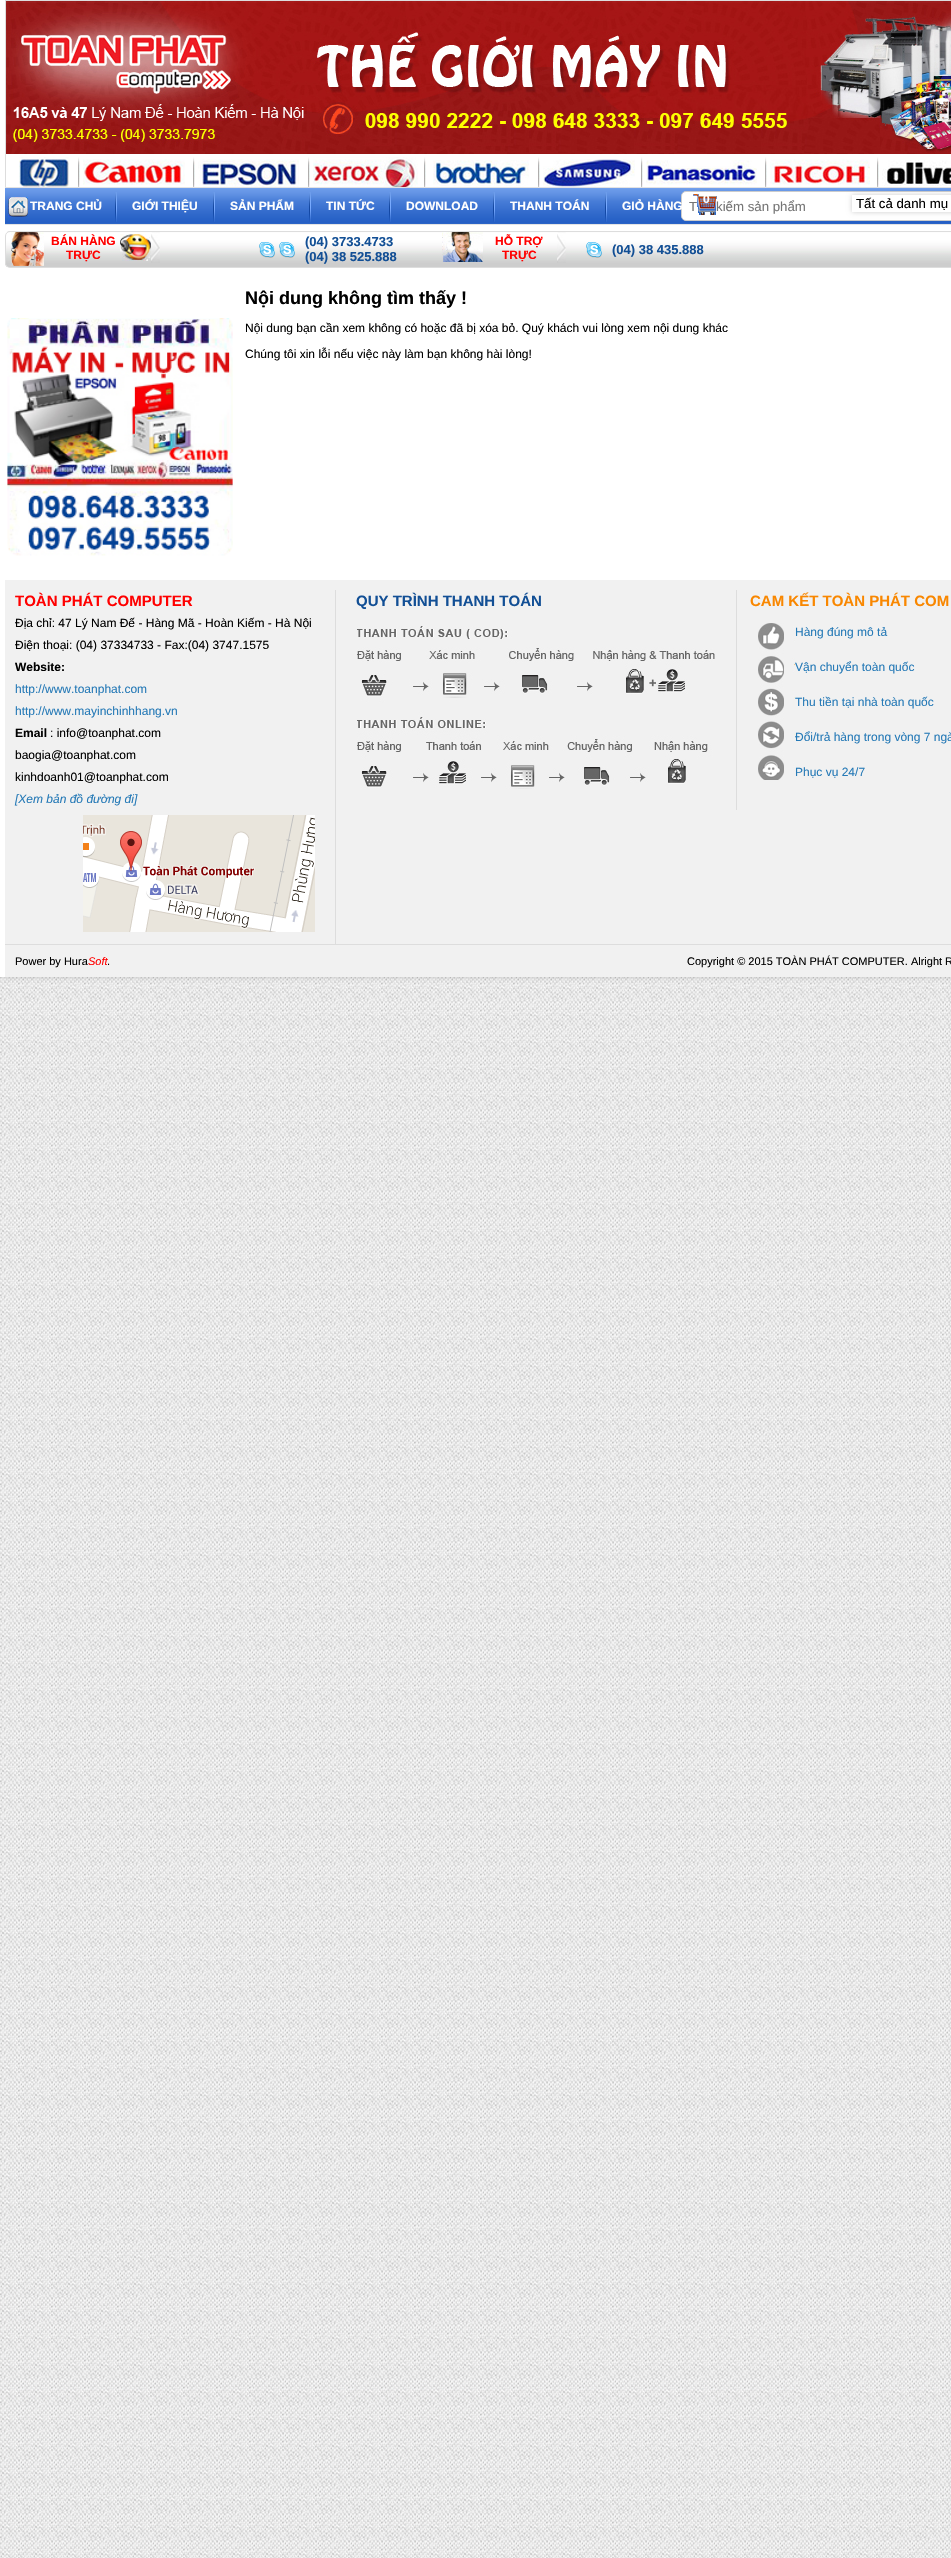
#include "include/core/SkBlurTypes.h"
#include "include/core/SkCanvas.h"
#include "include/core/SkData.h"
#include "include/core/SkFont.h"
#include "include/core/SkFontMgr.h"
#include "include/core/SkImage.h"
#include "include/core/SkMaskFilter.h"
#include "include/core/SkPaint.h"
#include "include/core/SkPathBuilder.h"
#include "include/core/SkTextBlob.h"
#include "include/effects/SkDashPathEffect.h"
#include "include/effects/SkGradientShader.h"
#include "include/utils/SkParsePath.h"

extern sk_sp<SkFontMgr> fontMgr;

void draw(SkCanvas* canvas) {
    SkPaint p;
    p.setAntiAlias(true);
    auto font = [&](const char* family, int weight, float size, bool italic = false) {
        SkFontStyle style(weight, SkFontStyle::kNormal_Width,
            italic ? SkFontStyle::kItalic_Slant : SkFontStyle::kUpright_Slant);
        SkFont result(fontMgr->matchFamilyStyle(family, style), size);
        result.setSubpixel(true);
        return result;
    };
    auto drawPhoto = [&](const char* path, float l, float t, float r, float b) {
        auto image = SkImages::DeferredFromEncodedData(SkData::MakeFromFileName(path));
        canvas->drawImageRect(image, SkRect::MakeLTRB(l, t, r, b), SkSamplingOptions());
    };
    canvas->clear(0xFFFFFFFF);
    drawPhoto("media/1.png", 0, 977, 951, 2558);
    p.setColor(0x33000000);
    p.setMaskFilter(SkMaskFilter::MakeBlur(kNormal_SkBlurStyle, 2.5f));
    canvas->drawRect(SkRect::MakeLTRB(0, 0, 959, 977), p);
    p.setMaskFilter(nullptr);
    {
        const struct { float l, t, r, b; SkColor color; } items[] = {
            {0, 0, 951, 977, 0xFFFFFFFF},
            {5, 0, 951, 1, 0xFFDDDDDD},
            {5, 0, 6, 187, 0xFFDDDDDD},
        };
        for (auto [l, t, r, b, color] : items) {
            p.setColor(color);
            canvas->drawRect(SkRect::MakeLTRB(l, t, r, b), p);
        }
    }
    drawPhoto("media/2.png", 6, 1, 951, 154);
    drawPhoto("media/3.png", 19, 157, 70, 187);
    drawPhoto("media/4.png", 78, 157, 80, 187);
    drawPhoto("media/5.png", 83, 159, 185, 185);
    drawPhoto("media/4.png", 193, 157, 195, 187);
    drawPhoto("media/6.png", 198, 159, 299, 187);
    drawPhoto("media/4.png", 308, 157, 310, 187);
    drawPhoto("media/7.png", 313, 157, 418, 187);
    drawPhoto("media/4.png", 424, 157, 426, 187);
    drawPhoto("media/8.png", 433, 160, 529, 187);
    drawPhoto("media/4.png", 538, 157, 540, 187);
    drawPhoto("media/9.png", 543, 159, 635, 187);
    drawPhoto("media/4.png", 641, 157, 643, 187);
    drawPhoto("media/10.png", 646, 160, 757, 185);
    drawPhoto("media/4.png", 765, 157, 767, 187);
    drawPhoto("media/11.png", 770, 159, 870, 185);
    drawPhoto("media/4.png", 877, 157, 879, 187);
    drawPhoto("media/12.png", 882, 160, 951, 186);
    drawPhoto("media/13.png", 5, 187, 951, 225);
    drawPhoto("media/14.png", 115, 192, 117, 222);
    drawPhoto("media/15.png", 8, 197, 28, 217);
    auto font1 = font("Liberation Sans", 700, 12);
    p.setColor(0xFFFFFFFF);
    canvas->drawString("TRANG CHỦ", 30, 210, font1, p);
    drawPhoto("media/14.png", 213, 192, 215, 222);
    canvas->drawString("GIỚI THIỆU", 132, 210, font1, p);
    drawPhoto("media/14.png", 309, 192, 311, 222);
    canvas->drawString("SẢN PHẨM", 230, 210, font1, p);
    drawPhoto("media/14.png", 389, 192, 391, 222);
    canvas->drawString("TIN TỨC", 326, 210, font1, p);
    drawPhoto("media/14.png", 493, 192, 495, 222);
    canvas->drawString("DOWNLOAD", 406, 210, font1, p);
    drawPhoto("media/14.png", 605, 192, 607, 222);
    canvas->drawString("THANH TOÁN", 510, 210, font1, p);
    canvas->drawRoundRect(SkRect::MakeLTRB(681.5f, 191.5f, 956.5f, 220.5f), 4.5f, 4.5f, p);
    p.setStyle(SkPaint::kStroke_Style);
    p.setStrokeWidth(1);
    p.setColor(0xFFCCCCCC);
    canvas->drawRoundRect(SkRect::MakeLTRB(681.5f, 191.5f, 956.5f, 220.5f), 4.5f, 4.5f, p);
    p.setStyle(SkPaint::kFill_Style);
    p.setColor(0xFFFFFFFF);
    canvas->drawString("GIỎ HÀNG", 622, 210, font1, p);
    auto font2 = font("Liberation Sans", 400, 13.25f);
    p.setColor(0xFF757575);
    canvas->drawString("T", 689, 211, font2, p);
    canvas->drawString("kiếm sản phẩm", 716, 211, font2, p);
    drawPhoto("media/16.png", 693, 194, 717, 215);
    p.setColor(0xFFFFFFFF);
    canvas->drawString("0", 703, 203, font1, p);
    canvas->save();
    canvas->clipPath(SkPathBuilder(SkPathFillType::kEvenOdd).moveTo(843, 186).lineTo(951, 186).lineTo(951, 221).lineTo(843, 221).close().moveTo(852, 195).lineTo(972, 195).lineTo(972, 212).lineTo(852, 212).close().detach(), true);
    p.setColor(0x33000000);
    p.setMaskFilter(SkMaskFilter::MakeBlur(kNormal_SkBlurStyle, 2.5f));
    canvas->drawRect(SkRect::MakeLTRB(852, 195, 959, 212), p);
    p.setMaskFilter(nullptr);
    canvas->restore();
    p.setColor(0xFF000000);
    canvas->drawString("Tất cả danh mụ", 856, 208, font2, p);
    drawPhoto("media/17.png", 5, 231, 951, 267);
    p.setStyle(SkPaint::kStroke_Style);
    p.setColor(0xFFDDDDDD);
    canvas->drawRoundRect(SkRect::MakeLTRB(5.5f, 231.5f, 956.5f, 267.5f), 4.5f, 4.5f, p);
    drawPhoto("media/18.png", 11, 232, 44, 266);
    drawPhoto("media/19.png", 120, 234, 151, 261);
    p.setStyle(SkPaint::kFill_Style);
    p.setColor(0xFFFF0000);
    canvas->drawString("BÁN HÀNG", 51, 245, font1, p);
    canvas->drawString("TRỰC", 66, 259, font1, p);
    drawPhoto("media/20.png", 151, 232, 160, 263);
    drawPhoto("media/21.png", 259, 242, 275, 258);
    drawPhoto("media/21.png", 279, 242, 295, 258);
    auto font3 = font("Liberation Sans", 700, 13);
    p.setColor(0xFF124F95);
    canvas->drawString("(04) 3733.4733", 305, 246, font3, p);
    canvas->drawString("(04) 38 525.888", 305, 261, font3, p);
    drawPhoto("media/22.png", 442, 232, 483, 262);
    p.setColor(0xFFFF0000);
    canvas->drawString("HỖ TRỢ", 495, 245, font1, p);
    canvas->drawString("TRỰC", 502, 259, font1, p);
    drawPhoto("media/23.png", 557, 232, 566, 263);
    drawPhoto("media/24.png", 586, 242, 602, 258);
    p.setColor(0xFF124F95);
    canvas->drawString("(04) 38 435.888", 612, 254, font3, p);
    drawPhoto("media/25.png", 7, 318, 233, 556);
    auto font4 = font("Liberation Sans", 700, 18);
    p.setColor(0xFF000000);
    canvas->drawString("Nội dung không tìm thấy !", 245, 304, font4, p);
    auto font5 = font("Liberation Sans", 400, 12);
    canvas->drawString("Nội dung bạn cần xem không có hoặc đã bị xóa bỏ. Quý khách vui lòng xem nội dung khác", 245, 332, font5, p);
    canvas->drawString("Chúng tôi xin lỗi nếu việc này làm bạn không hài lòng!", 245, 358, font5, p);
    p.setColor(0xFFF1F1F1);
    canvas->drawRect(SkRect::MakeLTRB(5, 580, 951, 977), p);
    p.setColor(0xFFDDDDDD);
    canvas->drawRect(SkRect::MakeLTRB(335, 590, 336, 944), p);
    auto font6 = font("Liberation Sans", 700, 15);
    p.setColor(0xFFFF0000);
    canvas->drawString("TOÀN PHÁT COMPUTER", 15, 606, font6, p);
    p.setColor(0xFF000000);
    canvas->drawString("Địa chỉ: 47 Lý Nam Đế - Hàng Mã - Hoàn Kiếm - Hà Nội", 15, 627, font5, p);
    canvas->drawString("Điện thoại: (04) 37334733 - Fax:(04) 3747.1575", 15, 649, font5, p);
    canvas->drawString("Website:", 15, 671, font1, p);
    p.setColor(0xFF267AB7);
    canvas->drawString("http://www.toanphat.com", 15, 693, font5, p);
    canvas->drawString("http://www.mayinchinhhang.vn", 15, 715, font5, p);
    p.setColor(0xFF000000);
    canvas->drawString("Email", 15, 737, font1, p);
    {
        const struct { const char* s; float x, y; } items[] = {
            {": info@toanphat.com", 50, 737},
            {"baogia@toanphat.com", 15, 759},
            {"kinhdoanh01@toanphat.com", 15, 781},
        };
        for (auto [s, x, y] : items) {
            canvas->drawString(s, x, y, font5, p);
        }
    }
    auto font7 = font("Liberation Sans", 400, 12, true);
    p.setColor(0xFF267AB7);
    canvas->drawString("[Xem bản đồ đường đi]", 15, 803, font7, p);
    drawPhoto("media/26.png", 83, 815, 315, 932);
    p.setColor(0xFFDDDDDD);
    canvas->drawRect(SkRect::MakeLTRB(736, 590, 737, 810), p);
    p.setColor(0xFF124F95);
    canvas->drawString("QUY TRÌNH THANH TOÁN", 356, 606, font6, p);
    drawPhoto("media/27.png", 357, 626, 715, 789);
    p.setColor(0xFFF98700);
    canvas->drawString("CAM KẾT TOÀN PHÁT COM", 750, 606, font6, p);
    drawPhoto("media/28.png", 758, 623, 795, 780);
    p.setColor(0xFF267AB7);
    {
        const struct { const char* s; float x, y; } items[] = {
            {"Hàng đúng mô tả", 795, 636},
            {"Vận chuyển toàn quốc", 795, 671},
            {"Thu tiền tại nhà toàn quốc", 795, 706},
            {"Đổi/trả hàng trong vòng 7 ngà", 795, 741},
            {"Phục vụ 24/7", 795, 776},
        };
        for (auto [s, x, y] : items) {
            canvas->drawString(s, x, y, font5, p);
        }
    }
    p.setColor(0xFFDDDDDD);
    canvas->drawRect(SkRect::MakeLTRB(5, 944, 951, 945), p);
    auto font8 = font("Liberation Sans", 400, 11);
    p.setColor(0xFF000000);
    canvas->drawString("Power by Hura", 15, 965, font8, p);
    auto font9 = font("Liberation Sans", 400, 11, true);
    p.setColor(0xFFFF0000);
    canvas->drawString("Soft", 88, 965, font9, p);
    p.setColor(0xFF000000);
    canvas->drawString(".", 107, 965, font8, p);
    canvas->drawString("Copyright © 2015 TOÀN PHÁT COMPUTER. Alright R", 687, 965, font8, p);
}
